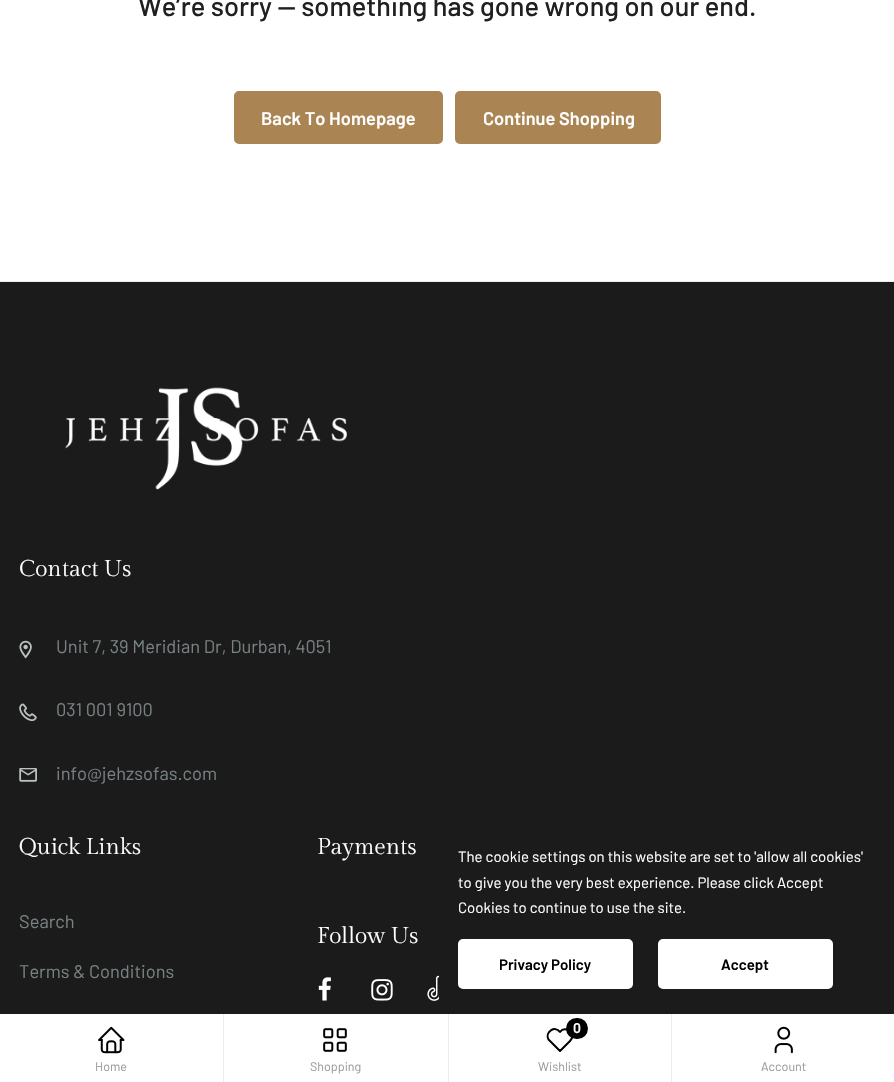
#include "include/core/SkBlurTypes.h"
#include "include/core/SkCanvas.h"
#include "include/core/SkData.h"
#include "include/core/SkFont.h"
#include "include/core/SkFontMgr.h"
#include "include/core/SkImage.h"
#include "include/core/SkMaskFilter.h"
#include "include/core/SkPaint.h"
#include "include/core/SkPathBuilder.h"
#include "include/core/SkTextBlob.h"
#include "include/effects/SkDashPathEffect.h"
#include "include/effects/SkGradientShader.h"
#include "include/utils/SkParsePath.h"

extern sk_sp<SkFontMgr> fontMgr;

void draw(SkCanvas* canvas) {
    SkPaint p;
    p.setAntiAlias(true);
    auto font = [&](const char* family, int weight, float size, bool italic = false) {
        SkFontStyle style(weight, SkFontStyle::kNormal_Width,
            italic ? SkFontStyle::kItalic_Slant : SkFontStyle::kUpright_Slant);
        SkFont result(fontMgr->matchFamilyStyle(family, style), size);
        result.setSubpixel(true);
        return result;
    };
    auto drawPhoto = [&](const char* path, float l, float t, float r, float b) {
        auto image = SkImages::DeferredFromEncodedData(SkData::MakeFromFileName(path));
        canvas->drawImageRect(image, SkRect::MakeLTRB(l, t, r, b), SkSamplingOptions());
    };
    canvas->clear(0xFFFFFFFF);
    auto font1 = font("Barlow", 500, 27.1f);
    p.setColor(0xFF202020);
    canvas->drawString("We’re sorry — something has gone wrong on our end.", 138, 16, font1, p);
    p.setColor(0xFFAA8453);
    canvas->drawRoundRect(SkRect::MakeLTRB(235.5f, 92.5f, 441.5f, 142.5f), 3.5f, 3.5f, p);
    p.setStyle(SkPaint::kStroke_Style);
    p.setStrokeWidth(3);
    canvas->drawRoundRect(SkRect::MakeLTRB(235.5f, 92.5f, 441.5f, 142.5f), 3.5f, 3.5f, p);
    auto font2 = font("Barlow", 600, 18.25f);
    p.setStyle(SkPaint::kFill_Style);
    p.setColor(0xFFFFFFFF);
    canvas->drawString("Back To Homepage", 261, 125, font2, p);
    p.setColor(0xFFAA8453);
    canvas->drawRoundRect(SkRect::MakeLTRB(456.5f, 92.5f, 659.5f, 142.5f), 3.5f, 3.5f, p);
    p.setStyle(SkPaint::kStroke_Style);
    canvas->drawRoundRect(SkRect::MakeLTRB(456.5f, 92.5f, 659.5f, 142.5f), 3.5f, 3.5f, p);
    p.setStyle(SkPaint::kFill_Style);
    p.setColor(0xFFFFFFFF);
    canvas->drawString("Continue Shopping", 483, 125, font2, p);
    p.setColor(0xFF1B1B1B);
    canvas->drawRect(SkRect::MakeLTRB(0, 282, 894, 1014), p);
    p.setColor(0xFFECECEC);
    canvas->drawRect(SkRect::MakeLTRB(0, 281, 894, 282), p);
    drawPhoto("media/1.png", 65, 387, 347, 490);
    auto font3 = font("Gilda Display", 400, 22.75f);
    p.setColor(0xFFFFFFFF);
    canvas->drawString("Contact Us", 19, 576, font3, p);
    drawPhoto("media/2.png", 19, 640, 32, 659);
    auto font4 = font("Barlow", 400, 18.25f);
    p.setColor(0xFF778082);
    canvas->drawString("Unit 7, 39 Meridian Dr, Durban, 4051", 56, 653, font4, p);
    drawPhoto("media/3.png", 19, 703, 37, 721);
    canvas->drawString("031 001 9100", 56, 716, font4, p);
    drawPhoto("media/4.png", 19, 768, 37, 782);
    canvas->drawString("info@jehzsofas.com", 56, 780, font4, p);
    p.setColor(0xFFFFFFFF);
    canvas->drawString("Quick Links", 19, 854, font3, p);
    p.setColor(0xFF778082);
    canvas->drawString("Search", 19, 928, font4, p);
    canvas->drawString("Terms & Conditions", 19, 978, font4, p);
    p.setColor(0xFFFFFFFF);
    canvas->drawString("Payments", 317, 854, font3, p);
    canvas->drawString("Follow Us", 317, 943, font3, p);
    drawPhoto("media/5.png", 318, 977, 331, 1001);
    drawPhoto("media/6.png", 371, 979, 393, 1001);
    drawPhoto("media/7.png", 427, 975, 439, 1001);
    auto font5 = font("Barlow", 400, 15);
    {
        const struct { const char* s; float x, y; } items[] = {
            {"The cookie settings on this website are set to 'allow all cookies'", 458, 862},
            {"to give you the very best experience. Please click Accept", 458, 888},
            {"Cookies to continue to use the site.", 458, 913},
        };
        for (auto [s, x, y] : items) {
            canvas->drawString(s, x, y, font5, p);
        }
    }
    canvas->drawRoundRect(SkRect::MakeLTRB(459.5f, 940.5f, 631.5f, 987.5f), 3.5f, 3.5f, p);
    p.setStyle(SkPaint::kStroke_Style);
    canvas->drawRoundRect(SkRect::MakeLTRB(459.5f, 940.5f, 631.5f, 987.5f), 3.5f, 3.5f, p);
    auto font6 = font("Barlow", 600, 15);
    p.setStyle(SkPaint::kFill_Style);
    p.setColor(0xFF000000);
    canvas->drawString("Privacy Policy", 499, 970, font6, p);
    p.setColor(0xFFFFFFFF);
    canvas->drawRoundRect(SkRect::MakeLTRB(659.5f, 940.5f, 831.5f, 987.5f), 3.5f, 3.5f, p);
    p.setStyle(SkPaint::kStroke_Style);
    canvas->drawRoundRect(SkRect::MakeLTRB(659.5f, 940.5f, 831.5f, 987.5f), 3.5f, 3.5f, p);
    p.setStyle(SkPaint::kFill_Style);
    p.setColor(0xFF000000);
    canvas->drawString("Accept", 721, 970, font6, p);
    p.setColor(0xFFECECEC);
    canvas->drawRect(SkRect::MakeLTRB(223, 1014, 224, 1082), p);
    drawPhoto("media/8.png", 98, 1026, 125, 1054);
    auto font7 = font("Barlow", 400, 12.5f);
    p.setColor(0xFF9B9B9B);
    canvas->drawString("Home", 95, 1071, font7, p);
    p.setColor(0xFFECECEC);
    canvas->drawRect(SkRect::MakeLTRB(448, 1014, 449, 1082), p);
    drawPhoto("media/9.png", 323, 1028, 347, 1052);
    p.setColor(0xFF9B9B9B);
    canvas->drawString("Shopping", 310, 1071, font7, p);
    p.setColor(0xFFECECEC);
    canvas->drawRect(SkRect::MakeLTRB(671, 1014, 672, 1082), p);
    p.setStyle(SkPaint::kStroke_Style);
    p.setStrokeWidth(2);
    p.setStrokeCap(SkPaint::kRound_Cap);
    p.setStrokeJoin(SkPaint::kRound_Join);
    p.setColor(0xFF000000);
    canvas->drawPath(SkPathBuilder().moveTo(570, 1041).lineTo(560, 1051).lineTo(548.5f, 1039.5f).cubicTo(544.5f, 1032, 555, 1025, 560, 1032).cubicTo(565.5f, 1024.5f, 577, 1034, 570, 1041).detach(), p);
    p.setStyle(SkPaint::kFill_Style);
    canvas->drawRoundRect(SkRect::MakeLTRB(566, 1018, 588, 1039), 10.5f, 10.5f, p);
    auto font8 = font("Barlow", 600, 14);
    p.setColor(0xFFFFFFFF);
    canvas->drawString("0", 573, 1033, font8, p);
    p.setColor(0xFF9B9B9B);
    canvas->drawString("Wishlist", 538, 1071, font7, p);
    drawPhoto("media/10.png", 774, 1026, 793, 1054);
    canvas->drawString("Account", 761, 1071, font7, p);
}
